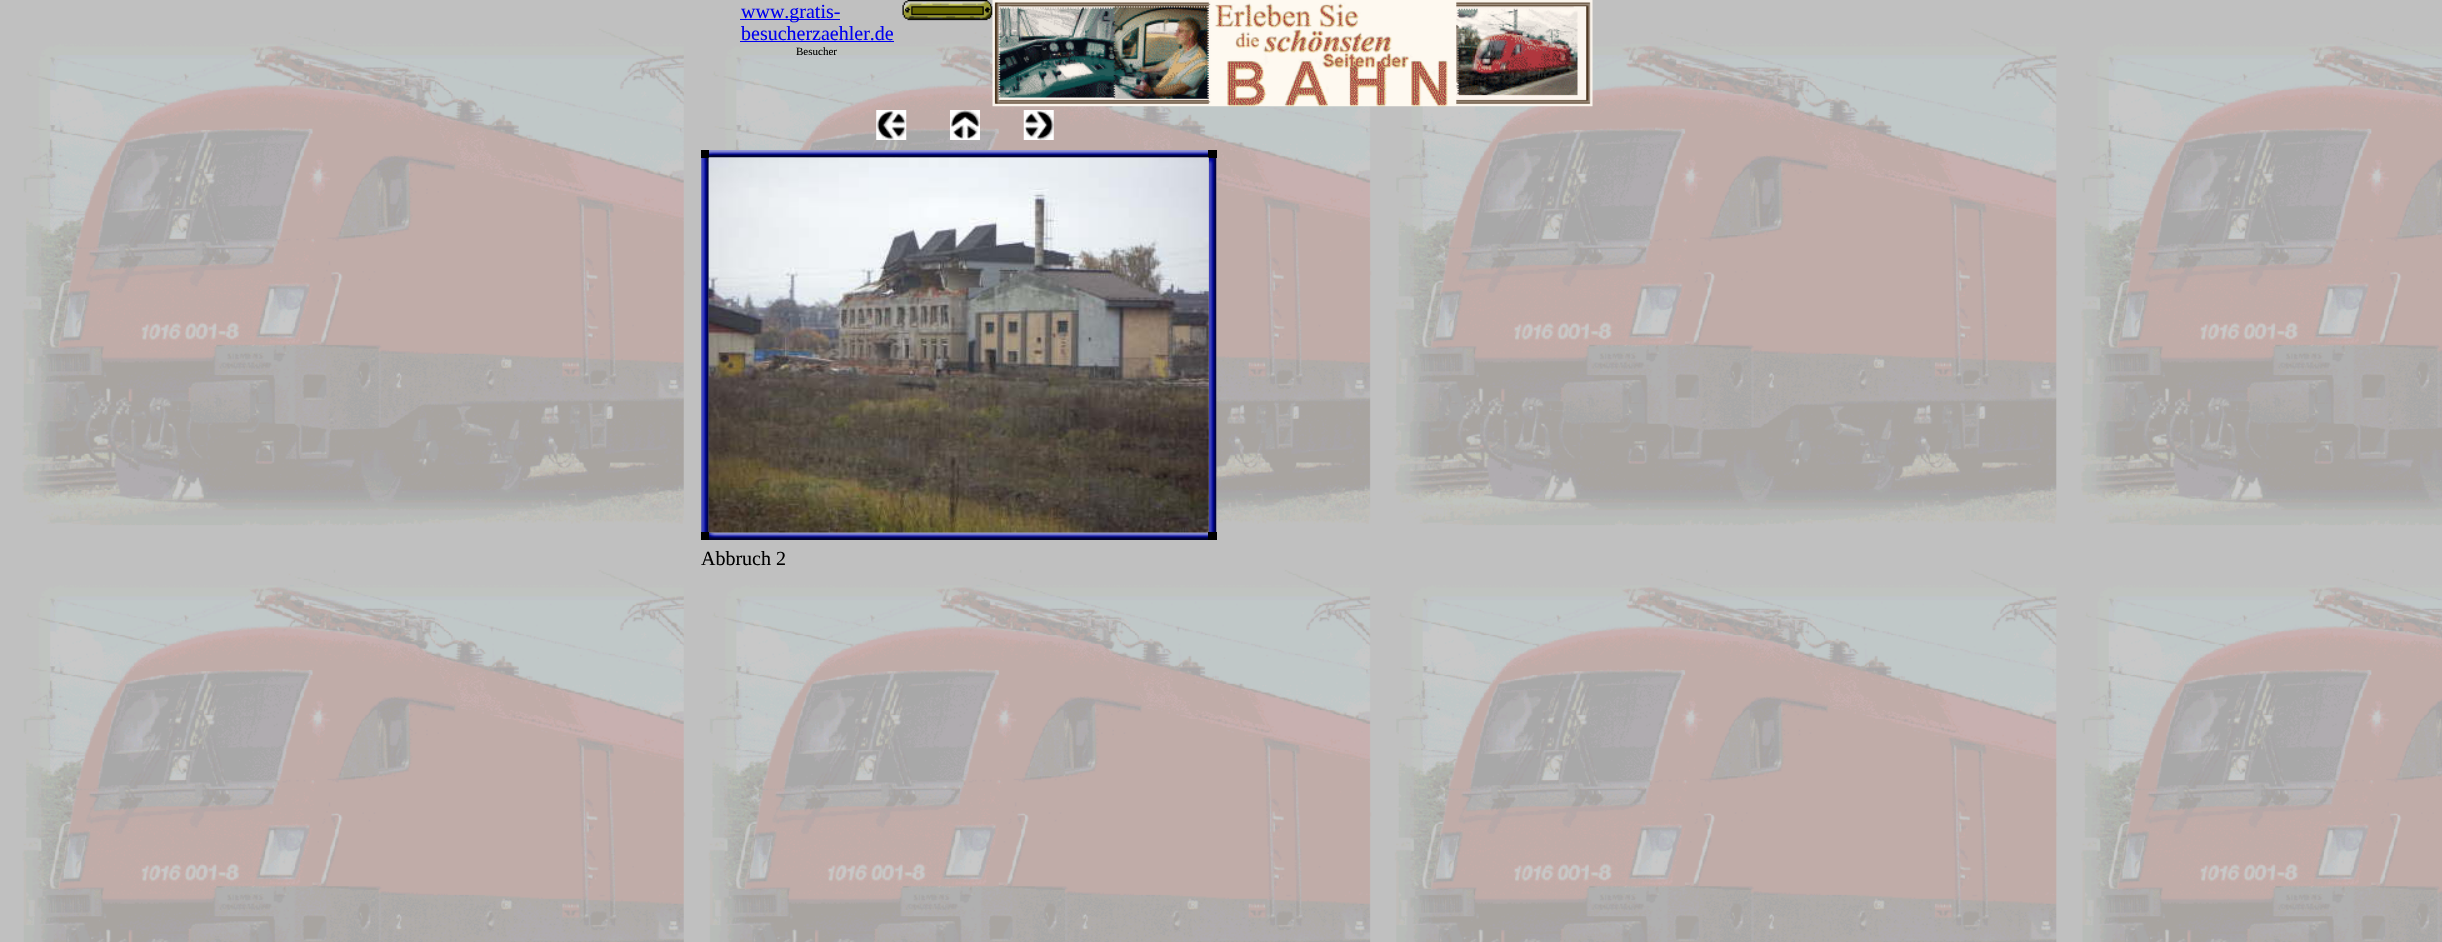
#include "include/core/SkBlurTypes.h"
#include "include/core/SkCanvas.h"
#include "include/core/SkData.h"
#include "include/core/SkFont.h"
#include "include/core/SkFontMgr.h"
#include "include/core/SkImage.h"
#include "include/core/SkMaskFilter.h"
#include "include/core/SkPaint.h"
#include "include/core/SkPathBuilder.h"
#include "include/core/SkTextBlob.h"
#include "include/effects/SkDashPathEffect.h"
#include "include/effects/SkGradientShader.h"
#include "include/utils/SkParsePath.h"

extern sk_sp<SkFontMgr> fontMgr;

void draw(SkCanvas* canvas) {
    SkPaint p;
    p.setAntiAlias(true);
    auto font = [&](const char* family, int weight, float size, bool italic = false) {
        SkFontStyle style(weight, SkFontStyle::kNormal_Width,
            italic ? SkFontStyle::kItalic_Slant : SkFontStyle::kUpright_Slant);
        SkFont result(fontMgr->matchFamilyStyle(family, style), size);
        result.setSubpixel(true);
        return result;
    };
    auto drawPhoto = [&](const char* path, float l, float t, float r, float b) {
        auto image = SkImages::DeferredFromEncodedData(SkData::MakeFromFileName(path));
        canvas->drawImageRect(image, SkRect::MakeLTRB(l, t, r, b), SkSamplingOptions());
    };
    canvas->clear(0xFFFFFFFF);
    drawPhoto("media/1.png", 0, 0, 2442, 942);
    p.setColor(0xFF0000EE);
    canvas->drawRect(SkRect::MakeLTRB(740, 19, 840, 20), p);
    auto font1 = font("Liberation Serif", 400, 20);
    canvas->drawString("www.gratis-", 741, 18, font1, p);
    canvas->drawString("besucherzaehler.de", 741, 40, font1, p);
    canvas->drawRect(SkRect::MakeLTRB(740, 41, 894, 42), p);
    auto font2 = font("Liberation Serif", 400, 11);
    p.setColor(0xFF000000);
    canvas->drawString("Besucher", 796, 55, font2, p);
    drawPhoto("media/2.png", 902, 0, 993, 21);
    drawPhoto("media/3.png", 992, 0, 1593, 107);
    drawPhoto("media/4.png", 876, 110, 907, 140);
    drawPhoto("media/5.png", 950, 110, 980, 140);
    drawPhoto("media/6.png", 1023, 110, 1054, 140);
    canvas->drawRect(SkRect::MakeLTRB(701, 150, 709, 158), p);
    drawPhoto("media/7.png", 709, 150, 1208, 158);
    canvas->drawRect(SkRect::MakeLTRB(1208, 150, 1217, 158), p);
    drawPhoto("media/8.png", 701, 158, 709, 532);
    drawPhoto("media/10.png", 1208, 158, 1217, 532);
    drawPhoto("media/11.png", 709, 532, 1208, 540);
    drawPhoto("media/9.png", 708, 157, 1209, 533);
    canvas->drawRect(SkRect::MakeLTRB(701, 532, 709, 540), p);
    canvas->drawRect(SkRect::MakeLTRB(1208, 532, 1217, 540), p);
    canvas->drawString("Abbruch 2", 701, 565, font1, p);
}
